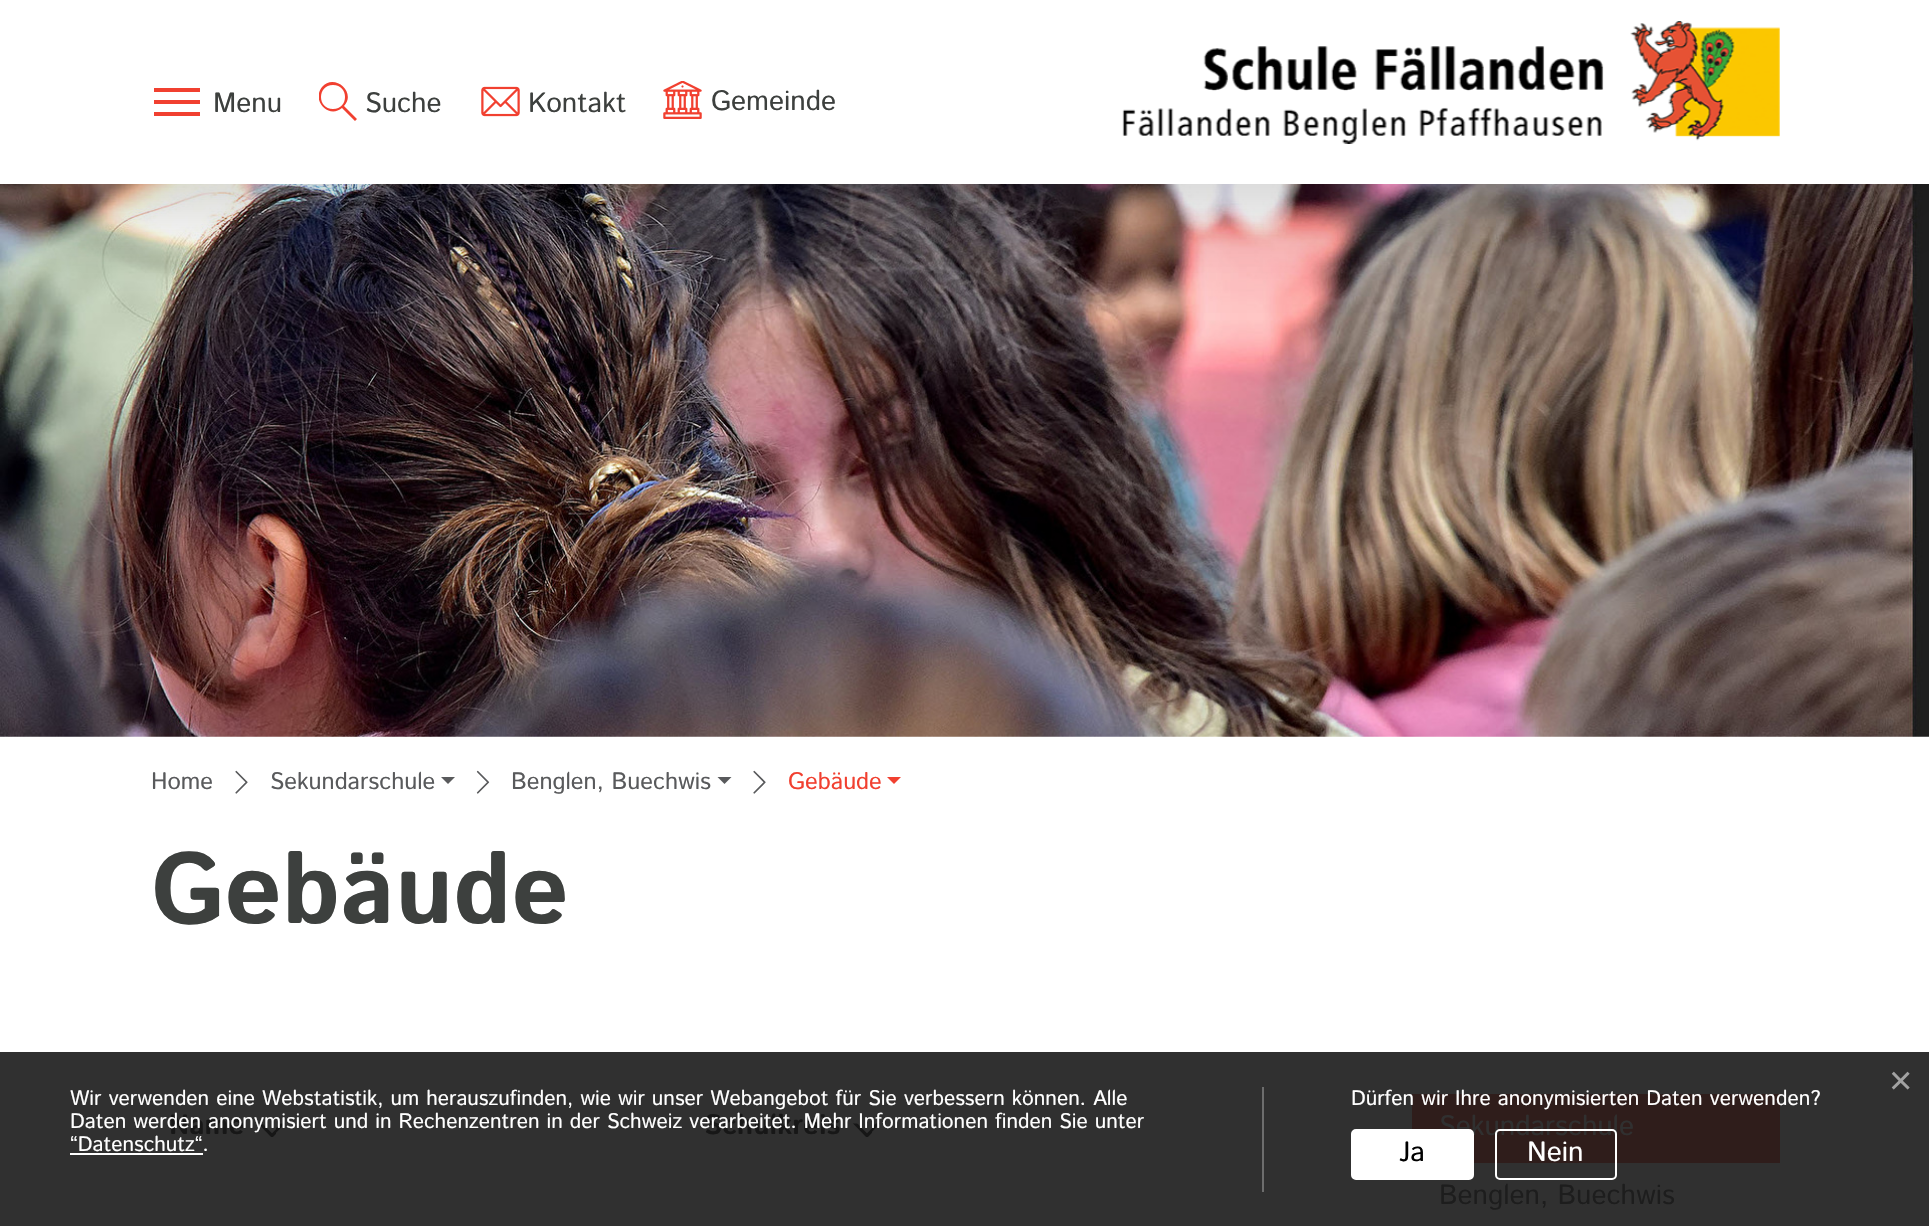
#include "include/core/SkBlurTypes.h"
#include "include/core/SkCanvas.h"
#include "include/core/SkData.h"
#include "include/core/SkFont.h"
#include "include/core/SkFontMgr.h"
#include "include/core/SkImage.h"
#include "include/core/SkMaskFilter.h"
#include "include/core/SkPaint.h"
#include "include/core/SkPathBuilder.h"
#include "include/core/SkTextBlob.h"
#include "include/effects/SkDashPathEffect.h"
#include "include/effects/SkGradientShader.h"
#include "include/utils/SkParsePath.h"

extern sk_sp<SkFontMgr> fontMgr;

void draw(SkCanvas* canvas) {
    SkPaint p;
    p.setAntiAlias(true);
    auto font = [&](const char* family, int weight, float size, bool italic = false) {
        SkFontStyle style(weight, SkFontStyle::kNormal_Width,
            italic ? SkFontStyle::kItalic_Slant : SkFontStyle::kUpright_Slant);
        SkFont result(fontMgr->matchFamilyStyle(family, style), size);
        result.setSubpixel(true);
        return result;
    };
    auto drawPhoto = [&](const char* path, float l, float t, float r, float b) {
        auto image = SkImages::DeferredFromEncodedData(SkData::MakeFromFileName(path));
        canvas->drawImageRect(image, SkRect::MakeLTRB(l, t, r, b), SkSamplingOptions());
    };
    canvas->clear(0xFFFFFFFF);
    p.setColor(0xFF303030);
    canvas->drawRect(SkRect::MakeLTRB(0, 1052, 1929, 1226), p);
    drawPhoto("media/4.png", 0, 184, 1929, 737);
    p.setColor(0x2E000000);
    p.setMaskFilter(SkMaskFilter::MakeBlur(kNormal_SkBlurStyle, 42));
    canvas->drawRect(SkRect::MakeLTRB(0, 28, 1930, 212), p);
    p.setMaskFilter(nullptr);
    {
        const struct { float l, t, r, b; SkColor color; } items[] = {
            {0, 0, 1929, 184, 0xFFFFFFFF},
            {154, 88, 200, 92, 0xFFF14030},
            {154, 100, 200, 104, 0xFFF14030},
            {154, 112, 200, 116, 0xFFF14030},
        };
        for (auto [l, t, r, b, color] : items) {
            p.setColor(color);
            canvas->drawRect(SkRect::MakeLTRB(l, t, r, b), p);
        }
    }
    auto font1 = font("Istok Web", 400, 28);
    p.setColor(0xFF3D403E);
    canvas->drawString("Menu", 213, 112, font1, p);
    canvas->save();
    canvas->clipRect(SkRect::MakeLTRB(319, 82, 357, 121));
    p.setColor(0xFFF14030);
    canvas->drawPath(SkPathBuilder().moveTo(344, 106).cubicTo(357, 92, 334, 73, 322, 87).cubicTo(311, 101, 329, 119, 342, 108).lineTo(355, 121).lineTo(357, 119).close().moveTo(333, 109).cubicTo(317, 109, 317, 85, 333, 85).cubicTo(349, 85, 349, 109, 333, 109).close().detach(), p);
    canvas->restore();
    p.setColor(0xFF3D403E);
    canvas->drawString("Suche", 365, 112, font1, p);
    drawPhoto("media/1.png", 481, 86, 520, 117);
    canvas->drawString("Kontakt", 528, 112, font1, p);
    drawPhoto("media/2.png", 663, 81, 702, 119);
    canvas->drawString("Gemeinde", 711, 110, font1, p);
    drawPhoto("media/3.png", 1122, 21, 1780, 144);
    auto font2 = font("Istok Web", 400, 23.75f);
    p.setColor(0xFF595A5C);
    canvas->drawString("Home", 151, 789, font2, p);
    drawPhoto("media/5.png", 235, 770, 248, 794);
    canvas->drawString("Sekundarschule", 270, 789, font2, p);
    canvas->drawPath(SkPathBuilder().moveTo(441, 777).lineTo(455, 777).lineTo(448, 784).close().detach(), p);
    drawPhoto("media/6.png", 476, 770, 490, 794);
    canvas->drawString("Benglen, Buechwis", 511, 789, font2, p);
    canvas->drawPath(SkPathBuilder().moveTo(717.5f, 777).lineTo(731.5f, 777).lineTo(724.5f, 784).close().detach(), p);
    drawPhoto("media/7.png", 753, 770, 766, 794);
    p.setColor(0xFFF14030);
    canvas->drawString("Gebäude", 788, 789, font2, p);
    canvas->drawPath(SkPathBuilder().moveTo(887, 777).lineTo(901, 777).lineTo(894, 784).close().detach(), p);
    auto font3 = font("Istok Web", 700, 100);
    p.setColor(0xFF3D403E);
    canvas->drawString("Gebäude", 151, 923, font3, p);
    auto font4 = font("Istok Web", 700, 28);
    p.setColor(0xFF171717);
    canvas->drawString("Name", 169, 1134, font4, p);
    drawPhoto("media/8.png", 254, 1123, 286, 1137);
    canvas->drawString("Schulkreis", 704, 1134, font4, p);
    drawPhoto("media/9.png", 849, 1123, 881, 1137);
    p.setColor(0xFF2F1D1B);
    canvas->drawRect(SkRect::MakeLTRB(1412, 1094, 1780, 1159), p);
    canvas->drawRect(SkRect::MakeLTRB(1474, 1159, 1780, 1163), p);
    p.setColor(0xFF303030);
    canvas->drawString("Sekundarschule", 1439, 1135, font1, p);
    p.setColor(0xFF1D1D1D);
    canvas->drawString("Benglen, Buechwis", 1439, 1204, font1, p);
    auto font5 = font("Liberation Sans", 400, 40);
    p.setColor(0xFFA2A2A2);
    canvas->drawString("×", 1889, 1094, font5, p);
    p.setColor(0xFF6D6D6D);
    canvas->drawRect(SkRect::MakeLTRB(1262, 1087, 1264, 1192), p);
    auto font6 = font("Istok Web", 400, 21);
    p.setColor(0xFFFFFFFF);
    {
        const struct { const char* s; float x, y; } items[] = {
            {"Wir verwenden eine Webstatistik, um herauszufinden, wie wir unser Webangebot für Sie verbessern können. Alle", 70, 1105},
            {"Daten werden anonymisiert und in Rechenzentren in der Schweiz verarbeitet. Mehr Informationen finden Sie unter", 70, 1128},
            {"“Datenschutz“.", 70, 1151},
        };
        for (auto [s, x, y] : items) {
            canvas->drawString(s, x, y, font6, p);
        }
    }
    canvas->drawRect(SkRect::MakeLTRB(70, 1153, 203, 1155), p);
    canvas->drawString("Dürfen wir Ihre anonymisierten Daten verwenden?", 1351, 1105, font6, p);
    canvas->drawRoundRect(SkRect::MakeLTRB(1352, 1130, 1473, 1179), 4, 4, p);
    p.setStyle(SkPaint::kStroke_Style);
    p.setStrokeWidth(2);
    canvas->drawRoundRect(SkRect::MakeLTRB(1352, 1130, 1473, 1179), 4, 4, p);
    p.setStyle(SkPaint::kFill_Style);
    p.setColor(0xFF000000);
    canvas->drawString("Ja", 1399, 1161, font1, p);
    p.setStyle(SkPaint::kStroke_Style);
    p.setColor(0xFFFFFFFF);
    canvas->drawRoundRect(SkRect::MakeLTRB(1496, 1130, 1616, 1179), 4, 4, p);
    p.setStyle(SkPaint::kFill_Style);
    canvas->drawString("Nein", 1527, 1161, font1, p);
}
